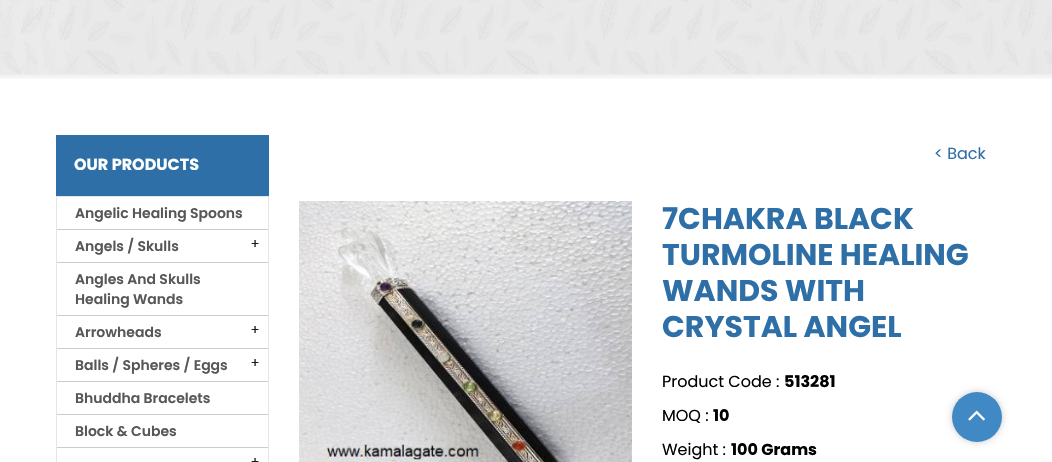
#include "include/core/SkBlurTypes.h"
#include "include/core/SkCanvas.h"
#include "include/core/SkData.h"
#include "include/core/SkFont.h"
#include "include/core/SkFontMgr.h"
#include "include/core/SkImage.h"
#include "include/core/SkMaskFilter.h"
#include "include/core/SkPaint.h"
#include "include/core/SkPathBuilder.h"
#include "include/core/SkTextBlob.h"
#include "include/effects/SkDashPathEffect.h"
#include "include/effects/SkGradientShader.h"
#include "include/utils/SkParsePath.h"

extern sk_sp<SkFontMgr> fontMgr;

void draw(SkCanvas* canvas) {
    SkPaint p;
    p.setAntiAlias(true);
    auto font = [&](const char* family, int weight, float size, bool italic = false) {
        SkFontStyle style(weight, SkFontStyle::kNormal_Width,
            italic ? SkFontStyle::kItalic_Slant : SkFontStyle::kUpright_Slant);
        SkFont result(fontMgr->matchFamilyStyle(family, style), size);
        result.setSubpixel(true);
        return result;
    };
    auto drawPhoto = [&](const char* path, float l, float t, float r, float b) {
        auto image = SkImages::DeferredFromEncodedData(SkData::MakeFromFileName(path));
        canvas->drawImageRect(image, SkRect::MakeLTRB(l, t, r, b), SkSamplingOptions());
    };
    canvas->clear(0xFFFFFFFF);
    drawPhoto("media/1.png", 0, 0, 1052, 74);
    drawPhoto("media/2.png", 0, 74, 1052, 79);
    p.setColor(0xFF2D6FA6);
    canvas->drawRect(SkRect::MakeLTRB(56, 135, 269, 196), p);
    auto font1 = font("Poppins", 700, 16);
    p.setColor(0xFFFFFFFF);
    canvas->drawString("OUR PRODUCTS", 74, 170, font1, p);
    p.setStyle(SkPaint::kStroke_Style);
    p.setStrokeWidth(1);
    p.setColor(0xFFE5E5E5);
    canvas->drawRect(SkRect::MakeLTRB(56.5f, 196.5f, 268.5f, 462.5f), p);
    p.setStyle(SkPaint::kFill_Style);
    p.setColor(0xFFCCCCCC);
    canvas->drawRect(SkRect::MakeLTRB(57, 229, 268, 230), p);
    auto font2 = font("Poppins", 600, 14);
    p.setColor(0xFF575757);
    canvas->drawString("Angelic Healing Spoons", 75, 218, font2, p);
    drawPhoto("media/3.png", 251, 240, 259, 247);
    p.setColor(0xFFCCCCCC);
    canvas->drawRect(SkRect::MakeLTRB(57, 262, 268, 263), p);
    p.setColor(0xFF575757);
    canvas->drawString("Angels / Skulls", 75, 251, font2, p);
    p.setColor(0xFFCCCCCC);
    canvas->drawRect(SkRect::MakeLTRB(57, 315, 268, 316), p);
    p.setColor(0xFF575757);
    canvas->drawString("Angles And Skulls", 75, 284, font2, p);
    canvas->drawString("Healing Wands", 75, 304, font2, p);
    drawPhoto("media/3.png", 251, 326, 259, 333);
    p.setColor(0xFFCCCCCC);
    canvas->drawRect(SkRect::MakeLTRB(57, 348, 268, 349), p);
    p.setColor(0xFF575757);
    canvas->drawString("Arrowheads", 75, 337, font2, p);
    drawPhoto("media/3.png", 251, 359, 259, 366);
    p.setColor(0xFFCCCCCC);
    canvas->drawRect(SkRect::MakeLTRB(57, 381, 268, 382), p);
    p.setColor(0xFF575757);
    canvas->drawString("Balls / Spheres / Eggs", 75, 370, font2, p);
    p.setColor(0xFFCCCCCC);
    canvas->drawRect(SkRect::MakeLTRB(57, 414, 268, 415), p);
    p.setColor(0xFF575757);
    canvas->drawString("Bhuddha Bracelets", 75, 403, font2, p);
    p.setColor(0xFFCCCCCC);
    canvas->drawRect(SkRect::MakeLTRB(57, 447, 268, 448), p);
    p.setColor(0xFF575757);
    canvas->drawString("Block & Cubes", 75, 436, font2, p);
    drawPhoto("media/4.png", 251, 458, 259, 462);
    auto font3 = font("Poppins", 400, 16);
    p.setColor(0xFF2D6FA6);
    canvas->drawString("< Back", 934, 159, font3, p);
    drawPhoto("media/5.png", 299, 201, 632, 462);
    auto font4 = font("Poppins", 700, 30);
    {
        const struct { const char* s; float x, y; } items[] = {
            {"7CHAKRA BLACK", 662, 229},
            {"TURMOLINE HEALING", 662, 265},
            {"WANDS WITH", 662, 301},
            {"CRYSTAL ANGEL", 662, 337},
        };
        for (auto [s, x, y] : items) {
            canvas->drawString(s, x, y, font4, p);
        }
    }
    p.setColor(0xFF000000);
    canvas->drawString("Product Code :", 662, 387, font3, p);
    canvas->drawString("513281", 784, 387, font1, p);
    canvas->drawString("MOQ :", 662, 421, font3, p);
    canvas->drawString("10", 713, 421, font1, p);
    canvas->drawString("Weight :", 662, 455, font3, p);
    canvas->drawString("100 Grams", 731, 455, font1, p);
    p.setColor(0x36000000);
    p.setMaskFilter(SkMaskFilter::MakeBlur(kNormal_SkBlurStyle, 3.5f));
    canvas->drawRoundRect(SkRect::MakeLTRB(952, 392, 1002, 442), 25, 25, p);
    p.setMaskFilter(nullptr);
    p.setColor(0xFF4189C5);
    canvas->drawCircle(977, 417, 25, p);
    drawPhoto("media/6.png", 968, 410, 985, 421);
}
